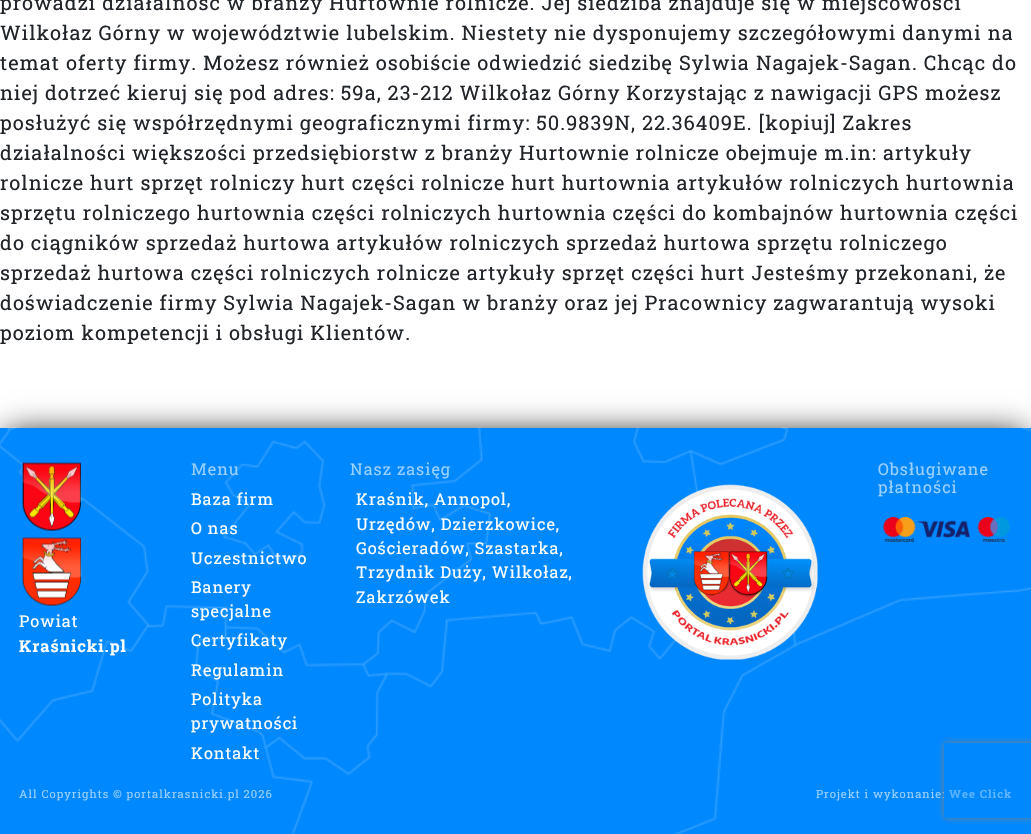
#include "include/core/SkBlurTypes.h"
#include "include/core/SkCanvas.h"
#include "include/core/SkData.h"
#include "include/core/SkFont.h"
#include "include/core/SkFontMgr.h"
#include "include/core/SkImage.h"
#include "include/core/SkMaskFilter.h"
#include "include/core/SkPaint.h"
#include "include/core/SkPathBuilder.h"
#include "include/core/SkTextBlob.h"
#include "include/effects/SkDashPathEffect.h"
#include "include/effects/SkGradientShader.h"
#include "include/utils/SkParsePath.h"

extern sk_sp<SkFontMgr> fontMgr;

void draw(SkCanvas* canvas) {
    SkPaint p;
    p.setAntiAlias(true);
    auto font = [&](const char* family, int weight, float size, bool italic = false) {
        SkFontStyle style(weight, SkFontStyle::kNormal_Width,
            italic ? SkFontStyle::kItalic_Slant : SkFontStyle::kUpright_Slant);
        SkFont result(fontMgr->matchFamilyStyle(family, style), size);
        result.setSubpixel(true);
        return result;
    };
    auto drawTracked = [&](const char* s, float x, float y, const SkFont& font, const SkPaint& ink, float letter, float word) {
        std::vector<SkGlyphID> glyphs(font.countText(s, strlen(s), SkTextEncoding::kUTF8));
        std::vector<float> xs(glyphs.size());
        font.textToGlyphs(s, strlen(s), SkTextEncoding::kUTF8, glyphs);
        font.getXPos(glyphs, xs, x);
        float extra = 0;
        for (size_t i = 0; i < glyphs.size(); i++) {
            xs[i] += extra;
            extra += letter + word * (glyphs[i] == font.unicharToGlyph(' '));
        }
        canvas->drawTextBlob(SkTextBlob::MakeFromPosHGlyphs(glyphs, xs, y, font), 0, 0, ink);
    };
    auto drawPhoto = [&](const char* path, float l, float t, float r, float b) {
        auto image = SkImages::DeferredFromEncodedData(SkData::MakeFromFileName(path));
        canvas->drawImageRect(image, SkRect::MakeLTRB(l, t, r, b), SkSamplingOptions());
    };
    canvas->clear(0xFFFFFFFF);
    auto font1 = font("Roboto Slab", 400, 20);
    p.setColor(0xFF212529);
    {
        const struct { const char* s; float x, y; } items[] = {
            {"prowadzi działalność w branży Hurtownie rolnicze. Jej siedziba znajduje się w miejscowości", 0, 10},
            {"Wilkołaz Górny w województwie lubelskim. Niestety nie dysponujemy szczegółowymi danymi na", 0, 40},
            {"temat oferty firmy. Możesz również osobiście odwiedzić siedzibę Sylwia Nagajek-Sagan. Chcąc do", 0, 70},
            {"niej dotrzeć kieruj się pod adres: 59a, 23-212 Wilkołaz Górny Korzystając z nawigacji GPS możesz", 0, 100},
            {"posłużyć się współrzędnymi geograficznymi firmy: 50.9839N, 22.36409E. [kopiuj] Zakres", 0, 130},
            {"działalności większości przedsiębiorstw z branży Hurtownie rolnicze obejmuje m.in: artykuły", 0, 160},
            {"rolnicze hurt sprzęt rolniczy hurt części rolnicze hurt hurtownia artykułów rolniczych hurtownia", 0, 190},
            {"sprzętu rolniczego hurtownia części rolniczych hurtownia części do kombajnów hurtownia części", 0, 220},
            {"do ciągników sprzedaż hurtowa artykułów rolniczych sprzedaż hurtowa sprzętu rolniczego", 0, 250},
            {"sprzedaż hurtowa części rolniczych rolnicze artykuły sprzęt części hurt Jesteśmy przekonani, że", 0, 280},
            {"doświadczenie firmy Sylwia Nagajek-Sagan w branży oraz jej Pracownicy zagwarantują wysoki", 0, 310},
            {"poziom kompetencji i obsługi Klientów.", 0, 340},
        };
        for (auto [s, x, y] : items) {
            drawTracked(s, x, y, font1, p, 1, 0);
        }
    }
    p.setColor(0xFF000000);
    p.setMaskFilter(SkMaskFilter::MakeBlur(kNormal_SkBlurStyle, 15.5f));
    canvas->drawRect(SkRect::MakeLTRB(6, 434, 1025, 829), p);
    p.setMaskFilter(nullptr);
    p.setColor(0xFF0088FF);
    canvas->drawRect(SkRect::MakeLTRB(0, 428, 1031, 834), p);
    drawPhoto("media/1.png", 0, 427, 1031, 834);
    drawPhoto("media/2.png", 21, 462, 82, 531);
    drawPhoto("media/3.png", 21, 537, 82, 606);
    auto font2 = font("Roboto Slab", 400, 16.25f);
    p.setColor(0xFFFFFFFF);
    drawTracked("Powiat", 19, 627, font2, p, 1, 0);
    auto font3 = font("Roboto Slab", 700, 16.25f);
    drawTracked("Kraśnicki.pl", 19, 652, font3, p, 1, 0);
    p.setColor(0xFF9AD0FF);
    drawTracked("Menu", 191, 475, font2, p, 1, 0);
    p.setColor(0xFFFFFFFF);
    {
        const struct { const char* s; float x, y; } items[] = {
            {"Baza firm", 191, 505},
            {"O nas", 191, 534},
            {"Uczestnictwo", 191, 564},
            {"Banery", 191, 593},
            {"specjalne", 191, 617},
            {"Certyfikaty", 191, 646},
            {"Regulamin", 191, 676},
            {"Polityka", 191, 705},
            {"prywatności", 191, 729},
            {"Kontakt", 191, 759},
        };
        for (auto [s, x, y] : items) {
            drawTracked(s, x, y, font2, p, 1, 0);
        }
    }
    p.setColor(0xFF9AD0FF);
    drawTracked("Nasz zasięg", 350, 475, font2, p, 1, 0);
    p.setColor(0xFFFFFFFF);
    {
        const struct { const char* s; float x, y; } items[] = {
            {"Kraśnik, Annopol,", 356, 505},
            {"Urzędów, Dzierzkowice,", 356, 530},
            {"Gościeradów, Szastarka,", 356, 554},
            {"Trzydnik Duży, Wilkołaz,", 356, 578},
            {"Zakrzówek", 356, 603},
        };
        for (auto [s, x, y] : items) {
            drawTracked(s, x, y, font2, p, 1, 0);
        }
    }
    drawPhoto("media/4.png", 642, 484, 818, 660);
    p.setColor(0xFF9AD0FF);
    drawTracked("Obsługiwane", 878, 475, font2, p, 1, 0);
    drawTracked("płatności", 878, 493, font2, p, 1, 0);
    drawPhoto("media/5.png", 883, 517, 1010, 542);
    auto font4 = font("Roboto Slab", 400, 11.25f);
    drawTracked("All Copyrights © portalkrasnicki.pl 2026", 19, 798, font4, p, 1, 0);
    drawTracked("Projekt i wykonanie:", 816, 798, font4, p, 1, 0);
    auto font5 = font("Roboto Slab", 700, 11.25f);
    p.setColor(0xFF5CB3FF);
    drawTracked("Wee Click", 949, 798, font5, p, 1, 0);
    canvas->save();
    canvas->clipPath(SkPathBuilder(SkPathFillType::kEvenOdd).moveTo(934, 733).lineTo(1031, 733).lineTo(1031, 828).lineTo(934, 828).close().moveTo(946.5f, 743).lineTo(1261.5f, 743).cubicTo(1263, 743, 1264, 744, 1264, 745.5f).lineTo(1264, 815.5f).cubicTo(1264, 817, 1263, 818, 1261.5f, 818).lineTo(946.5f, 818).cubicTo(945, 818, 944, 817, 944, 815.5f).lineTo(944, 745.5f).cubicTo(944, 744, 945, 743, 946.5f, 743).close().detach(), true);
    p.setColor(0xFF808080);
    p.setMaskFilter(SkMaskFilter::MakeBlur(kNormal_SkBlurStyle, 3));
    canvas->drawRoundRect(SkRect::MakeLTRB(944, 743, 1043, 818), 2.5f, 2.5f, p);
    p.setMaskFilter(nullptr);
    canvas->restore();
}
